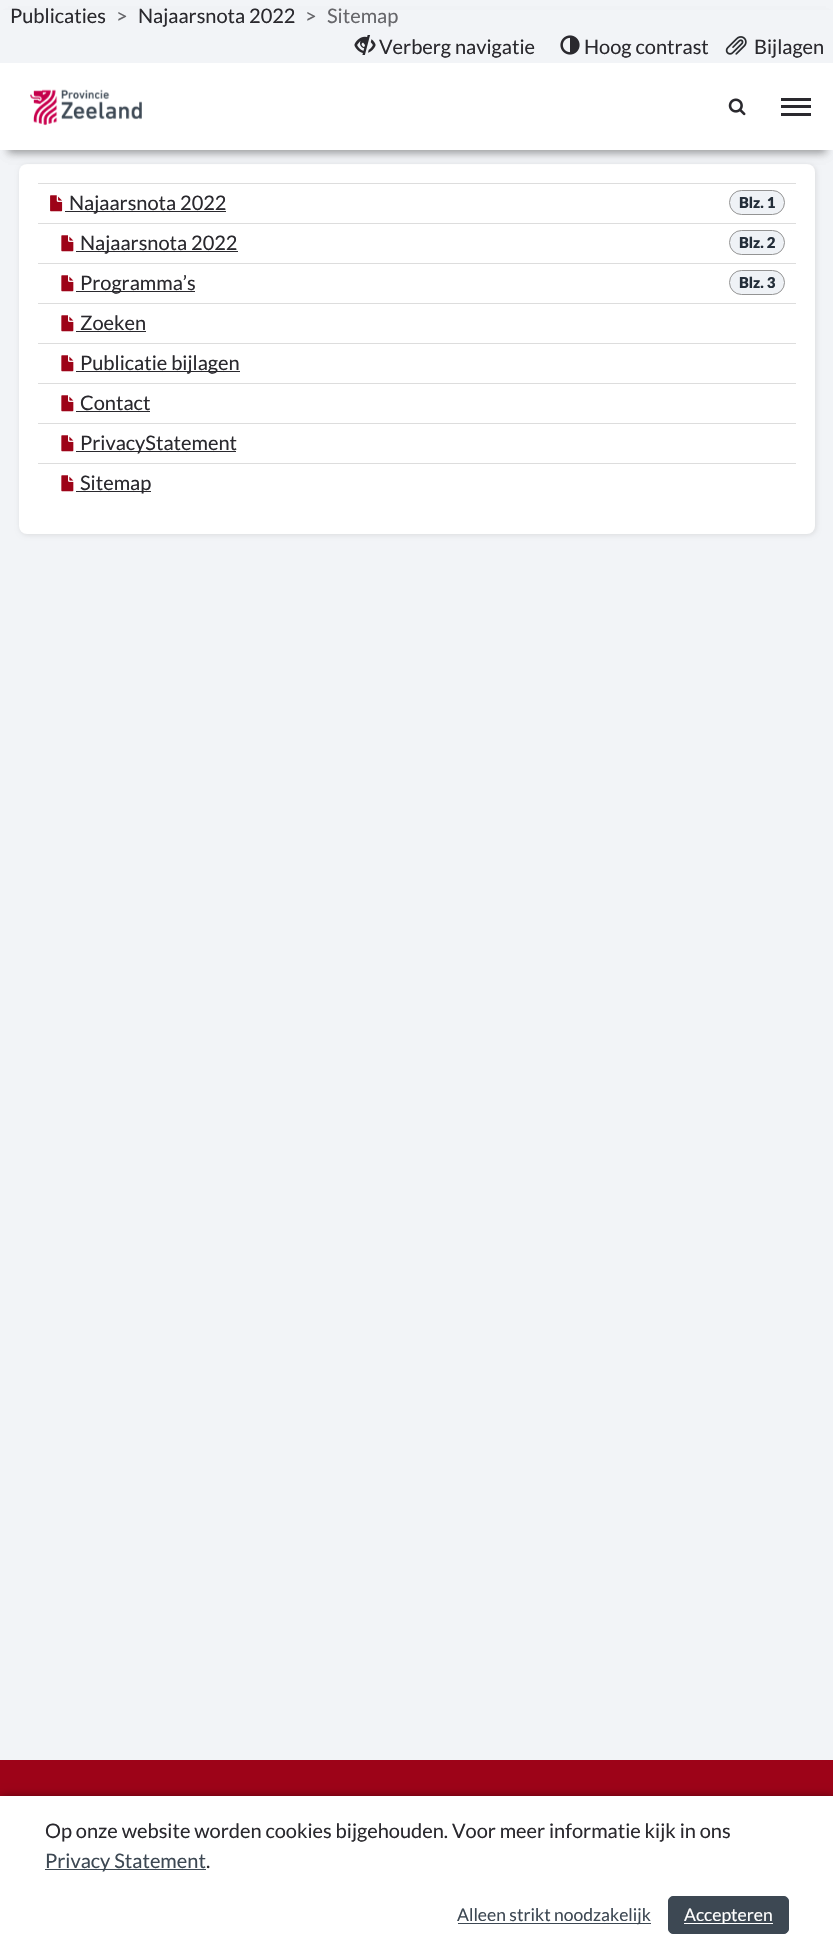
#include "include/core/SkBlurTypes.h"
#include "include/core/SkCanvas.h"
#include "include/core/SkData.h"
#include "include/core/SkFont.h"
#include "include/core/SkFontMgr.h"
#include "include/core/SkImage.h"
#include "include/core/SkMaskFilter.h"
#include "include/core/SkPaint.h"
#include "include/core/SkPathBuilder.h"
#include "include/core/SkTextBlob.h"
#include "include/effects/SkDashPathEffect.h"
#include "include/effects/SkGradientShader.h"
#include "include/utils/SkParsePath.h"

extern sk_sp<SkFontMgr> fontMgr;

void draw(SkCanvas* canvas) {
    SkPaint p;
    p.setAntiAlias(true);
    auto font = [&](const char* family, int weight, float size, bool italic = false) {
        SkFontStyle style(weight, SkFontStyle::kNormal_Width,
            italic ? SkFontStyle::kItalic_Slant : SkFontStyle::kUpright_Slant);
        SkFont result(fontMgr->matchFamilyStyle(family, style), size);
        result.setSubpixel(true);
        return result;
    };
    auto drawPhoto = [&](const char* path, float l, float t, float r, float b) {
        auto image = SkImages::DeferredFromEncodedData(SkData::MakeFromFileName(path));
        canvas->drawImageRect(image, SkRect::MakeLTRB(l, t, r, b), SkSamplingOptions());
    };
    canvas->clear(0xFFF2F4F7);
    p.setColor(0x1A000000);
    p.setMaskFilter(SkMaskFilter::MakeBlur(kNormal_SkBlurStyle, 2.5f));
    canvas->drawRoundRect(SkRect::MakeLTRB(20, 165, 816, 535), 8, 8, p);
    p.setMaskFilter(nullptr);
    p.setColor(0xFFFFFFFF);
    canvas->drawRoundRect(SkRect::MakeLTRB(19, 164, 815, 534), 8, 8, p);
    p.setColor(0x33000000);
    p.setMaskFilter(SkMaskFilter::MakeBlur(kNormal_SkBlurStyle, 4));
    canvas->drawRect(SkRect::MakeLTRB(8, 18, 826, 153), p);
    p.setMaskFilter(nullptr);
    p.setMaskFilter(SkMaskFilter::MakeBlur(kNormal_SkBlurStyle, 4));
    canvas->drawRect(SkRect::MakeLTRB(8, 18, 826, 153), p);
    p.setMaskFilter(nullptr);
    p.setColor(0xFFFFFFFF);
    canvas->drawRect(SkRect::MakeLTRB(0, 63, 833, 150), p);
    p.setColor(0xFFF2F4F7);
    canvas->drawRect(SkRect::MakeLTRB(0, 10, 833, 63), p);
    auto font1 = font("Lato", 400, 20);
    p.setColor(0xFF2A292E);
    canvas->drawString("Publicaties", 10, 23, font1, p);
    p.setColor(0xFF66666A);
    canvas->drawString(">", 116, 23, font1, p);
    p.setColor(0xFF2A292E);
    canvas->drawString("Najaarsnota 2022", 138, 23, font1, p);
    p.setColor(0xFF66666A);
    canvas->drawString(">", 305, 23, font1, p);
    canvas->drawString("Sitemap", 327, 23, font1, p);
    drawPhoto("media/1.png", 354, 35, 376, 55);
    p.setColor(0xFF2A292E);
    canvas->drawString("Verberg navigatie", 379, 54, font1, p);
    drawPhoto("media/2.png", 560, 35, 580, 55);
    canvas->drawString("Hoog contrast", 584, 54, font1, p);
    drawPhoto("media/3.png", 725, 36, 747, 55);
    canvas->drawString("Bijlagen", 754, 54, font1, p);
    drawPhoto("media/4.png", 30, 89, 142, 126);
    drawPhoto("media/5.png", 728, 98, 746, 116);
    {
        const struct { float l, t, r, b; SkColor color; } items[] = {
            {781, 98, 811, 101, 0xFF2A292E},
            {781, 105, 811, 108, 0xFF2A292E},
            {781, 113, 811, 116, 0xFF2A292E},
            {38, 183, 796, 184, 0xFFDDDDDD},
        };
        for (auto [l, t, r, b, color] : items) {
            p.setColor(color);
            canvas->drawRect(SkRect::MakeLTRB(l, t, r, b), p);
        }
    }
    drawPhoto("media/6.png", 50, 195, 63, 212);
    p.setColor(0xFF2A292E);
    canvas->drawRect(SkRect::MakeLTRB(65, 211, 226, 212), p);
    canvas->drawString("Najaarsnota 2022", 69, 210, font1, p);
    p.setColor(0xFFEFF2F6);
    canvas->drawRoundRect(SkRect::MakeLTRB(729.5f, 190.5f, 784.5f, 214.5f), 12, 12, p);
    p.setStyle(SkPaint::kStroke_Style);
    p.setStrokeWidth(1);
    p.setColor(0xFF949494);
    canvas->drawRoundRect(SkRect::MakeLTRB(729.5f, 190.5f, 784.5f, 214.5f), 12, 12, p);
    auto font2 = font("Lato", 900, 15);
    p.setStyle(SkPaint::kFill_Style);
    p.setColor(0xFF242E39);
    canvas->drawString("Blz. 1", 739, 208, font2, p);
    p.setColor(0xFFDDDDDD);
    canvas->drawRect(SkRect::MakeLTRB(38, 223, 796, 224), p);
    drawPhoto("media/7.png", 61, 235, 74, 252);
    p.setColor(0xFF2A292E);
    canvas->drawRect(SkRect::MakeLTRB(76, 251, 238, 252), p);
    canvas->drawString("Najaarsnota 2022", 80, 250, font1, p);
    p.setColor(0xFFEFF2F6);
    canvas->drawRoundRect(SkRect::MakeLTRB(729.5f, 230.5f, 784.5f, 254.5f), 12, 12, p);
    p.setStyle(SkPaint::kStroke_Style);
    p.setColor(0xFF949494);
    canvas->drawRoundRect(SkRect::MakeLTRB(729.5f, 230.5f, 784.5f, 254.5f), 12, 12, p);
    p.setStyle(SkPaint::kFill_Style);
    p.setColor(0xFF242E39);
    canvas->drawString("Blz. 2", 739, 248, font2, p);
    p.setColor(0xFFDDDDDD);
    canvas->drawRect(SkRect::MakeLTRB(38, 263, 796, 264), p);
    drawPhoto("media/7.png", 61, 275, 74, 292);
    p.setColor(0xFF2A292E);
    canvas->drawRect(SkRect::MakeLTRB(76, 291, 195, 292), p);
    canvas->drawString("Programma’s", 80, 290, font1, p);
    p.setColor(0xFFEFF2F6);
    canvas->drawRoundRect(SkRect::MakeLTRB(729.5f, 270.5f, 784.5f, 294.5f), 12, 12, p);
    p.setStyle(SkPaint::kStroke_Style);
    p.setColor(0xFF949494);
    canvas->drawRoundRect(SkRect::MakeLTRB(729.5f, 270.5f, 784.5f, 294.5f), 12, 12, p);
    p.setStyle(SkPaint::kFill_Style);
    p.setColor(0xFF242E39);
    canvas->drawString("Blz. 3", 739, 288, font2, p);
    p.setColor(0xFFDDDDDD);
    canvas->drawRect(SkRect::MakeLTRB(38, 303, 796, 304), p);
    drawPhoto("media/7.png", 61, 315, 74, 332);
    p.setColor(0xFF2A292E);
    canvas->drawString("Zoeken", 80, 330, font1, p);
    canvas->drawRect(SkRect::MakeLTRB(76, 331, 146, 332), p);
    p.setColor(0xFFDDDDDD);
    canvas->drawRect(SkRect::MakeLTRB(38, 343, 796, 344), p);
    drawPhoto("media/7.png", 61, 355, 74, 372);
    p.setColor(0xFF2A292E);
    canvas->drawRect(SkRect::MakeLTRB(76, 371, 240, 372), p);
    canvas->drawString("Publicatie bijlagen", 80, 370, font1, p);
    p.setColor(0xFFDDDDDD);
    canvas->drawRect(SkRect::MakeLTRB(38, 383, 796, 384), p);
    drawPhoto("media/7.png", 61, 395, 74, 412);
    p.setColor(0xFF2A292E);
    canvas->drawString("Contact", 80, 410, font1, p);
    canvas->drawRect(SkRect::MakeLTRB(76, 411, 150, 412), p);
    p.setColor(0xFFDDDDDD);
    canvas->drawRect(SkRect::MakeLTRB(38, 423, 796, 424), p);
    drawPhoto("media/7.png", 61, 435, 74, 452);
    p.setColor(0xFF2A292E);
    canvas->drawRect(SkRect::MakeLTRB(76, 451, 236, 452), p);
    canvas->drawString("PrivacyStatement", 80, 450, font1, p);
    p.setColor(0xFFDDDDDD);
    canvas->drawRect(SkRect::MakeLTRB(38, 463, 796, 464), p);
    drawPhoto("media/7.png", 61, 475, 74, 492);
    p.setColor(0xFF2A292E);
    canvas->drawRect(SkRect::MakeLTRB(76, 491, 151, 492), p);
    canvas->drawString("Sitemap", 80, 490, font1, p);
    p.setColor(0xFF9D0318);
    canvas->drawRect(SkRect::MakeLTRB(0, 1760, 833, 1796), p);
    p.setColor(0x99000000);
    p.setMaskFilter(SkMaskFilter::MakeBlur(kNormal_SkBlurStyle, 5));
    canvas->drawRect(SkRect::MakeLTRB(1, 1798, 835, 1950), p);
    p.setMaskFilter(nullptr);
    p.setColor(0xFFFFFFFF);
    canvas->drawRect(SkRect::MakeLTRB(0, 1796, 833, 1948), p);
    p.setColor(0xFF2A292E);
    canvas->drawString("Op onze website worden cookies bijgehouden. Voor meer informatie kijk in ons", 45, 1838, font1, p);
    p.setColor(0xFF3D4853);
    canvas->drawRect(SkRect::MakeLTRB(45, 1869, 206, 1870), p);
    canvas->drawString("Privacy Statement", 45, 1868, font1, p);
    p.setColor(0xFF2A292E);
    canvas->drawString(".", 206, 1868, font1, p);
    p.setColor(0xFF3D4853);
    canvas->drawRect(SkRect::MakeLTRB(458, 1923, 651, 1924), p);
    auto font3 = font("Lato", 400, 17.5f);
    canvas->drawString("Alleen strikt noodzakelijk", 457, 1921, font3, p);
    canvas->drawRoundRect(SkRect::MakeLTRB(668.5f, 1896.5f, 788.5f, 1933.5f), 4.5f, 4.5f, p);
    p.setStyle(SkPaint::kStroke_Style);
    canvas->drawRoundRect(SkRect::MakeLTRB(668.5f, 1896.5f, 788.5f, 1933.5f), 4.5f, 4.5f, p);
    p.setStyle(SkPaint::kFill_Style);
    p.setColor(0xFFFFFFFF);
    canvas->drawRect(SkRect::MakeLTRB(684, 1923, 773, 1924), p);
    canvas->drawString("Accepteren", 684, 1921, font3, p);
}
